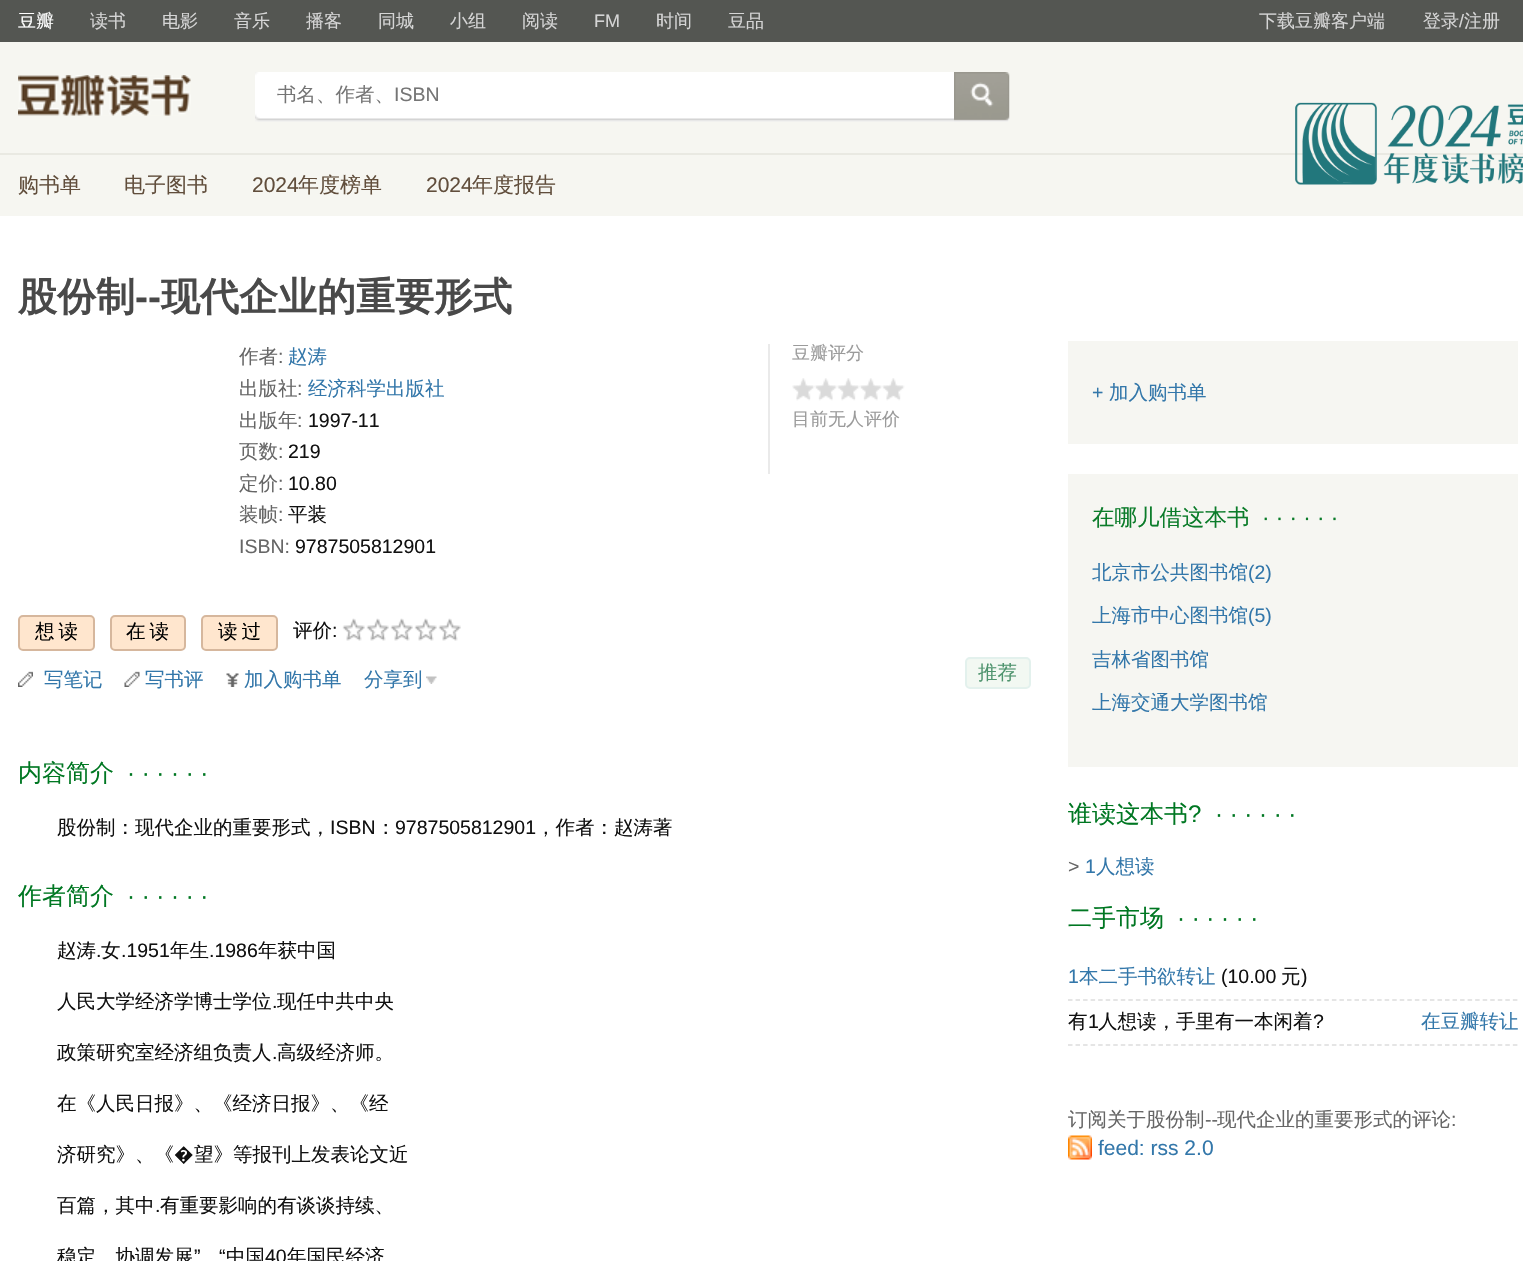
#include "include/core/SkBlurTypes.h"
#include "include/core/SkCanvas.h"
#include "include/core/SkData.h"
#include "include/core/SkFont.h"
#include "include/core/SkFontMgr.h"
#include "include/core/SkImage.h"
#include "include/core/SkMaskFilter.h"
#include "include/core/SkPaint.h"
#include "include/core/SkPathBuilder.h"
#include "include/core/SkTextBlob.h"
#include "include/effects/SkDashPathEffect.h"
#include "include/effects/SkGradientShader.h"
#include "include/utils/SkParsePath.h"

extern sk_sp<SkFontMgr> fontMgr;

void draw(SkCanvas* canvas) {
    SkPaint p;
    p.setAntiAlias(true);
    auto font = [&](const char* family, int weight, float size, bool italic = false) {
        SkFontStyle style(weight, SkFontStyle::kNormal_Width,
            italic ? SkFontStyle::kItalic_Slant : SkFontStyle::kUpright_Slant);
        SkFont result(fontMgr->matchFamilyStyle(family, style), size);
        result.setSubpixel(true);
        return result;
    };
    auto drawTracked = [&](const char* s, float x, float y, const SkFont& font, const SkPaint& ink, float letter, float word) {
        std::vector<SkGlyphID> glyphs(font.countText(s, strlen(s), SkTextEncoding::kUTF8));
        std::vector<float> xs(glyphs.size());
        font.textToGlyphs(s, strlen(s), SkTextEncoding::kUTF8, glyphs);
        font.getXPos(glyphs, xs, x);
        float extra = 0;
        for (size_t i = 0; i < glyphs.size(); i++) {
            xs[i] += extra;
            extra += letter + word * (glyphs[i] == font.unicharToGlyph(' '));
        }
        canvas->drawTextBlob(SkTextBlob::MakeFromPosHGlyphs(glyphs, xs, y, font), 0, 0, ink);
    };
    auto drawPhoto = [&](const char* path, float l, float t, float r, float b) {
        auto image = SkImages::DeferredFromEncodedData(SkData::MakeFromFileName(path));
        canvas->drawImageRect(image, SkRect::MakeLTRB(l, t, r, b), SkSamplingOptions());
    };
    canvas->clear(0xFFFFFFFF);
    p.setColor(0xFF545652);
    canvas->drawRect(SkRect::MakeLTRB(0, 0, 1523, 42), p);
    auto font1 = font("WenQuanYi Zen Hei", 500, 18);
    p.setColor(0xFFFFFFFF);
    canvas->drawString("豆瓣", 18, 27, font1, p);
    p.setColor(0xFFD5D5D5);
    {
        const struct { const char* s; float x, y; } items[] = {
            {"读书", 90, 27},
            {"电影", 162, 27},
            {"音乐", 234, 27},
            {"播客", 306, 27},
            {"同城", 378, 27},
            {"小组", 450, 27},
            {"阅读", 522, 27},
        };
        for (auto [s, x, y] : items) {
            canvas->drawString(s, x, y, font1, p);
        }
    }
    auto font2 = font("Liberation Sans", 400, 18);
    canvas->drawString("FM", 594, 27, font2, p);
    {
        const struct { const char* s; float x, y; } items[] = {
            {"时间", 656, 27},
            {"豆品", 728, 27},
            {"下载豆瓣客户端", 1259, 27},
            {"登录", 1423, 27},
        };
        for (auto [s, x, y] : items) {
            canvas->drawString(s, x, y, font1, p);
        }
    }
    canvas->drawString("/", 1459, 27, font2, p);
    canvas->drawString("注册", 1464, 27, font1, p);
    p.setColor(0xFFF6F6F1);
    canvas->drawRect(SkRect::MakeLTRB(0, 42, 1523, 216), p);
    p.setColor(0xFFE9E9E2);
    canvas->drawRect(SkRect::MakeLTRB(0, 153, 1523, 155), p);
    drawPhoto("media/1.png", 18, 75, 191, 116);
    drawPhoto("media/2.png", 255, 72, 960, 122);
    auto font3 = font("WenQuanYi Zen Hei", 500, 19.5f);
    p.setColor(0xFF757575);
    canvas->drawString("书名、作者、", 277, 101, font3, p);
    auto font4 = font("Liberation Sans", 400, 19.5f);
    canvas->drawString("ISBN", 394, 101, font4, p);
    drawPhoto("media/3.png", 954, 72, 1010, 122);
    auto font5 = font("WenQuanYi Zen Hei", 500, 21);
    p.setColor(0xFF614E3C);
    canvas->drawString("购书单", 18, 192, font5, p);
    canvas->drawString("电子图书", 124, 192, font5, p);
    auto font6 = font("Liberation Sans", 400, 21);
    canvas->drawString("2024", 252, 192, font6, p);
    canvas->drawString("年度榜单", 298, 192, font5, p);
    canvas->drawString("2024", 426, 192, font6, p);
    canvas->drawString("年度报告", 472, 192, font5, p);
    drawPhoto("media/4.png", 1295, 102, 1523, 185);
    auto font7 = font("WenQuanYi Zen Hei", 700, 39);
    p.setColor(0xFF494949);
    canvas->drawString("股份制", 18, 310, font7, p);
    auto font8 = font("Liberation Sans", 700, 39);
    canvas->drawString("--", 135, 310, font8, p);
    canvas->drawString("现代企业的重要形式", 161, 310, font7, p);
    p.setColor(0xFF666666);
    canvas->drawString("作者", 239, 363, font3, p);
    canvas->drawString(":", 278, 363, font4, p);
    p.setColor(0xFF3377AA);
    canvas->drawString("赵涛", 288, 363, font3, p);
    p.setColor(0xFF666666);
    canvas->drawString("出版社", 239, 395, font3, p);
    canvas->drawString(":", 297, 395, font4, p);
    p.setColor(0xFF3377AA);
    canvas->drawString("经济科学出版社", 308, 395, font3, p);
    p.setColor(0xFF666666);
    canvas->drawString("出版年", 239, 427, font3, p);
    canvas->drawString(":", 297, 427, font4, p);
    p.setColor(0xFF111111);
    canvas->drawString("1997-11", 308, 427, font4, p);
    p.setColor(0xFF666666);
    canvas->drawString("页数", 239, 458, font3, p);
    canvas->drawString(":", 278, 458, font4, p);
    p.setColor(0xFF111111);
    canvas->drawString("219", 288, 458, font4, p);
    p.setColor(0xFF666666);
    canvas->drawString("定价", 239, 490, font3, p);
    canvas->drawString(":", 278, 490, font4, p);
    p.setColor(0xFF111111);
    canvas->drawString("10.80", 288, 490, font4, p);
    p.setColor(0xFF666666);
    canvas->drawString("装帧", 239, 521, font3, p);
    canvas->drawString(":", 278, 521, font4, p);
    p.setColor(0xFF111111);
    canvas->drawString("平装", 288, 521, font3, p);
    p.setColor(0xFF666666);
    canvas->drawString("ISBN:", 239, 553, font4, p);
    p.setColor(0xFF111111);
    canvas->drawString("9787505812901", 295, 553, font4, p);
    p.setColor(0xFFEAEAEA);
    canvas->drawRect(SkRect::MakeLTRB(768, 344, 770, 474), p);
    p.setColor(0xFF9B9B9B);
    canvas->drawString("豆瓣评分", 792, 359, font1, p);
    drawPhoto("media/5.png", 792, 378, 905, 401);
    canvas->drawString("目前无人评价", 792, 425, font1, p);
    p.setColor(0xFFFFE6CE);
    canvas->drawRoundRect(SkRect::MakeLTRB(19, 616, 94, 650), 4, 4, p);
    p.setStyle(SkPaint::kStroke_Style);
    p.setStrokeWidth(2);
    p.setColor(0xFFD6B79D);
    canvas->drawRoundRect(SkRect::MakeLTRB(19, 616, 94, 650), 4, 4, p);
    p.setStyle(SkPaint::kFill_Style);
    p.setColor(0xFF000000);
    drawTracked("想读", 35, 638, font3, p, 4, 0);
    p.setColor(0xFFFFE6CE);
    canvas->drawRoundRect(SkRect::MakeLTRB(111, 616, 185, 650), 4, 4, p);
    p.setStyle(SkPaint::kStroke_Style);
    p.setColor(0xFFD6B79D);
    canvas->drawRoundRect(SkRect::MakeLTRB(111, 616, 185, 650), 4, 4, p);
    p.setStyle(SkPaint::kFill_Style);
    p.setColor(0xFF000000);
    drawTracked("在读", 126, 638, font3, p, 4, 0);
    p.setColor(0xFFFFE6CE);
    canvas->drawRoundRect(SkRect::MakeLTRB(202, 616, 277, 650), 4, 4, p);
    p.setStyle(SkPaint::kStroke_Style);
    p.setColor(0xFFD6B79D);
    canvas->drawRoundRect(SkRect::MakeLTRB(202, 616, 277, 650), 4, 4, p);
    p.setStyle(SkPaint::kFill_Style);
    p.setColor(0xFF000000);
    drawTracked("读过", 218, 638, font3, p, 4, 0);
    p.setColor(0xFF111111);
    canvas->drawString("评价", 293, 637, font3, p);
    canvas->drawString(":", 332, 637, font4, p);
    drawPhoto("media/6.png", 342, 618, 365, 641);
    drawPhoto("media/6.png", 366, 618, 389, 641);
    drawPhoto("media/6.png", 390, 618, 413, 641);
    drawPhoto("media/6.png", 414, 618, 437, 641);
    drawPhoto("media/6.png", 438, 618, 461, 641);
    drawPhoto("media/7.png", 18, 671, 33, 687);
    p.setColor(0xFF3377AA);
    canvas->drawString("写笔记", 44, 686, font3, p);
    drawPhoto("media/8.png", 124, 671, 140, 687);
    canvas->drawString("写书评", 145, 686, font3, p);
    drawPhoto("media/9.png", 226, 673, 239, 687);
    canvas->drawString("加入购书单", 244, 686, font3, p);
    canvas->drawString("分享到", 364, 686, font3, p);
    drawPhoto("media/10.png", 426, 676, 437, 684);
    p.setColor(0xFFF2F8F2);
    canvas->drawRoundRect(SkRect::MakeLTRB(966, 658, 1030, 688), 4, 4, p);
    p.setStyle(SkPaint::kStroke_Style);
    p.setColor(0xFFE3F1ED);
    canvas->drawRoundRect(SkRect::MakeLTRB(966, 658, 1030, 688), 4, 4, p);
    p.setStyle(SkPaint::kFill_Style);
    p.setColor(0xFF4F946E);
    canvas->drawString("推荐", 978, 679, font3, p);
    auto font9 = font("WenQuanYi Zen Hei", 500, 24);
    p.setColor(0xFF007722);
    canvas->drawString("内容简介", 18, 781, font9, p);
    auto font10 = font("Liberation Sans", 400, 24);
    canvas->drawString("· · · · · ·", 127, 781, font10, p);
    p.setColor(0xFF111111);
    canvas->drawString("股份制：现代企业的重要形式，", 57, 834, font3, p);
    canvas->drawString("ISBN", 330, 834, font4, p);
    canvas->drawString("：", 376, 834, font3, p);
    canvas->drawString("9787505812901", 395, 834, font4, p);
    canvas->drawString("，作者：赵涛著", 536, 834, font3, p);
    p.setColor(0xFF007722);
    canvas->drawString("作者简介", 18, 904, font9, p);
    canvas->drawString("· · · · · ·", 127, 904, font10, p);
    p.setColor(0xFF111111);
    canvas->drawString("赵涛", 57, 957, font3, p);
    canvas->drawString(".", 96, 957, font4, p);
    canvas->drawString("女", 101, 957, font3, p);
    canvas->drawString(".1951", 121, 957, font4, p);
    canvas->drawString("年生", 170, 957, font3, p);
    canvas->drawString(".1986", 209, 957, font4, p);
    canvas->drawString("年获中国", 258, 957, font3, p);
    canvas->drawString("人民大学经济学博士学位", 57, 1008, font3, p);
    canvas->drawString(".", 272, 1008, font4, p);
    canvas->drawString("现任中共中央", 277, 1008, font3, p);
    canvas->drawString("政策研究室经济组负责人", 57, 1059, font3, p);
    canvas->drawString(".", 272, 1059, font4, p);
    {
        const struct { const char* s; float x, y; } items[] = {
            {"高级经济师。", 277, 1059},
            {"在《人民日报》、《经济日报》、《经", 57, 1110},
            {"济研究》、《", 57, 1161},
        };
        for (auto [s, x, y] : items) {
            canvas->drawString(s, x, y, font3, p);
        }
    }
    auto font11 = font("Noto Sans", 400, 19.5f);
    canvas->drawString("�", 174, 1161, font11, p);
    canvas->drawString("望》等报刊上发表论文近", 194, 1161, font3, p);
    canvas->drawString("百篇，其中", 57, 1212, font3, p);
    canvas->drawString(".", 155, 1212, font4, p);
    canvas->drawString("有重要影响的有谈谈持续、", 160, 1212, font3, p);
    canvas->drawString("稳定、协调发展", 57, 1263, font3, p);
    canvas->drawString("”", 194, 1263, font4, p);
    canvas->drawString("“", 219, 1263, font4, p);
    canvas->drawString("中国", 226, 1263, font3, p);
    canvas->drawString("40", 265, 1263, font4, p);
    canvas->drawString("年国民经济", 287, 1263, font3, p);
    p.setColor(0xFFF6F6F2);
    canvas->drawRect(SkRect::MakeLTRB(1068, 341, 1518, 444), p);
    p.setColor(0xFF3377AA);
    canvas->drawString("+", 1092, 399, font4, p);
    canvas->drawString("加入购书单", 1109, 399, font3, p);
    p.setColor(0xFFF6F6F2);
    canvas->drawRect(SkRect::MakeLTRB(1068, 474, 1518, 767), p);
    auto font12 = font("WenQuanYi Zen Hei", 500, 22.5f);
    p.setColor(0xFF0B7C2A);
    canvas->drawString("在哪儿借这本书", 1092, 525, font12, p);
    auto font13 = font("Liberation Sans", 400, 22.5f);
    canvas->drawString("· · · · · ·", 1262, 525, font13, p);
    p.setColor(0xFF3377AA);
    canvas->drawString("北京市公共图书馆", 1092, 579, font3, p);
    canvas->drawString("(2)", 1248, 579, font4, p);
    canvas->drawString("上海市中心图书馆", 1092, 622, font3, p);
    canvas->drawString("(5)", 1248, 622, font4, p);
    canvas->drawString("吉林省图书馆", 1092, 666, font3, p);
    canvas->drawString("上海交通大学图书馆", 1092, 709, font3, p);
    p.setColor(0xFF007722);
    canvas->drawString("谁读这本书", 1068, 822, font9, p);
    canvas->drawString("?", 1188, 822, font10, p);
    canvas->drawString("· · · · · ·", 1215, 822, font10, p);
    p.setColor(0xFF666666);
    canvas->drawString(">", 1068, 873, font4, p);
    p.setColor(0xFF3377AA);
    canvas->drawString("1", 1085, 873, font4, p);
    canvas->drawString("人想读", 1096, 873, font3, p);
    p.setColor(0xFF007722);
    canvas->drawString("二手市场", 1068, 926, font9, p);
    canvas->drawString("· · · · · ·", 1177, 926, font10, p);
    p.setStyle(SkPaint::kStroke_Style);
    p.setStrokeWidth(1.5f);
    p.setColor(0xFFDDDDDD);
    p.setPathEffect(SkDashPathEffect::Make({{4.5f, 3.04f}}, 0));
    canvas->drawPath(SkPathBuilder().moveTo(1068, 1000).lineTo(1518, 1000).detach(), p);
    p.setPathEffect(nullptr);
    p.setStyle(SkPaint::kFill_Style);
    p.setColor(0xFF3377AA);
    canvas->drawString("1", 1068, 983, font4, p);
    canvas->drawString("本二手书欲转让", 1079, 983, font3, p);
    p.setColor(0xFF111111);
    canvas->drawString("(10.00", 1221, 983, font4, p);
    canvas->drawString("元", 1281, 983, font3, p);
    canvas->drawString(")", 1301, 983, font4, p);
    p.setStyle(SkPaint::kStroke_Style);
    p.setColor(0xFFDDDDDD);
    p.setPathEffect(SkDashPathEffect::Make({{4.5f, 3.04f}}, 0));
    canvas->drawPath(SkPathBuilder().moveTo(1068, 1045).lineTo(1518, 1045).detach(), p);
    p.setPathEffect(nullptr);
    p.setStyle(SkPaint::kFill_Style);
    p.setColor(0xFF111111);
    canvas->drawString("有", 1068, 1028, font3, p);
    canvas->drawString("1", 1088, 1028, font4, p);
    canvas->drawString("人想读，手里有一本闲着", 1098, 1028, font3, p);
    canvas->drawString("?", 1313, 1028, font4, p);
    p.setColor(0xFF3377AA);
    canvas->drawString("在豆瓣转让", 1421, 1028, font3, p);
    p.setColor(0xFF666666);
    canvas->drawString("订阅关于股份制", 1068, 1126, font3, p);
    canvas->drawString("--", 1205, 1126, font4, p);
    canvas->drawString("现代企业的重要形式的评论", 1217, 1126, font3, p);
    canvas->drawString(":", 1451, 1126, font4, p);
    drawPhoto("media/11.png", 1068, 1135, 1092, 1160);
    p.setColor(0xFF3377AA);
    canvas->drawString("feed: rss 2.0", 1098, 1155, font6, p);
}
